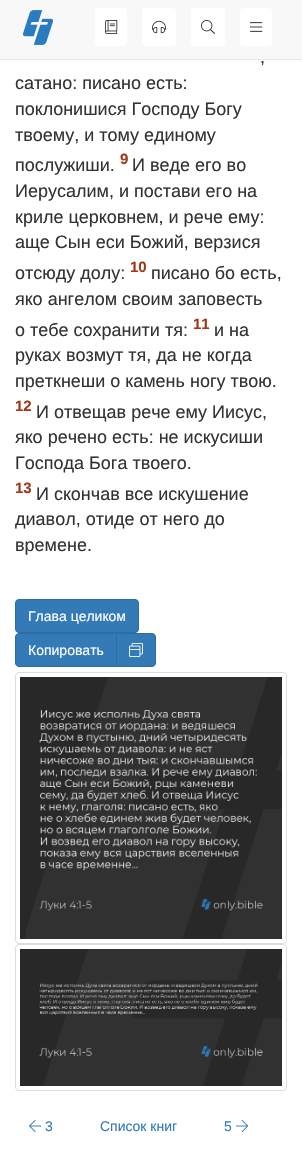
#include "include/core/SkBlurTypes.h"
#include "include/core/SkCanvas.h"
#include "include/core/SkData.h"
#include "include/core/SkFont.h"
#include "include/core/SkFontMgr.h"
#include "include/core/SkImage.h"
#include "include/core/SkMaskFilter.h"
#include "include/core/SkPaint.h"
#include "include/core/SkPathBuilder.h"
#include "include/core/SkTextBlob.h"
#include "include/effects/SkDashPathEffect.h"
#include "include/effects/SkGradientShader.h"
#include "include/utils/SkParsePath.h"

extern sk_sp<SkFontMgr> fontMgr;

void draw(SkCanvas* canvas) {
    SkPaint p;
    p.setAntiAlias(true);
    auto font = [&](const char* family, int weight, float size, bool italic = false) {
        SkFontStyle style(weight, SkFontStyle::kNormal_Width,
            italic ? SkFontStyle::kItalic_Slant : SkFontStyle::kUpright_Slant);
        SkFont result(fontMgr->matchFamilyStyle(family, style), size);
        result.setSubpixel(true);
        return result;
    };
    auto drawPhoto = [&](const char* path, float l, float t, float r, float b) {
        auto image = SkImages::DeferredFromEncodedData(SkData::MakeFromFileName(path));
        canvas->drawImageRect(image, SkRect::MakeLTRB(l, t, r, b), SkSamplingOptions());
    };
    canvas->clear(0xFFFFFFFF);
    p.setColor(0xFFF8F8F8);
    canvas->drawRect(SkRect::MakeLTRB(0, 0, 302, 59), p);
    p.setColor(0xFFE7E7E7);
    canvas->drawRect(SkRect::MakeLTRB(0, 59, 302, 60), p);
    drawPhoto("media/1.png", 23, 10, 54, 45);
    p.setColor(0xFFFFFFFF);
    canvas->drawRoundRect(SkRect::MakeLTRB(95, 8, 127, 46), 4, 4, p);
    drawPhoto("media/2.png", 105, 20, 118, 34);
    canvas->drawRoundRect(SkRect::MakeLTRB(142, 8, 176, 46), 4, 4, p);
    drawPhoto("media/3.png", 152, 20, 166, 34);
    canvas->drawRoundRect(SkRect::MakeLTRB(191, 8, 225, 46), 4, 4, p);
    drawPhoto("media/4.png", 201, 20, 215, 34);
    canvas->drawRoundRect(SkRect::MakeLTRB(240, 8, 272, 46), 4, 4, p);
    drawPhoto("media/5.png", 250, 22, 263, 32);
    auto font1 = font("Liberation Sans", 400, 18);
    p.setColor(0xFF333333);
    {
        const struct { const char* s; float x, y; } items[] = {
            {",", 260, 63},
            {"сатано: писано есть:", 15, 89},
            {"поклонишися Господу Богу", 15, 115},
            {"твоему, и тому единому", 15, 141},
            {"послужиши.", 15, 171},
        };
        for (auto [s, x, y] : items) {
            canvas->drawString(s, x, y, font1, p);
        }
    }
    auto font2 = font("Liberation Sans", 700, 15);
    p.setColor(0xFF9F3819);
    canvas->drawString("9", 120, 164, font2, p);
    p.setColor(0xFF333333);
    {
        const struct { const char* s; float x, y; } items[] = {
            {"И веде его во", 132, 171},
            {"Иерусалим, и постави его на", 15, 197},
            {"криле церковнем, и рече ему:", 15, 223},
            {"аще Сын еси Божий, верзися", 15, 248},
            {"отсюду долу:", 15, 279},
        };
        for (auto [s, x, y] : items) {
            canvas->drawString(s, x, y, font1, p);
        }
    }
    p.setColor(0xFF9F3819);
    canvas->drawString("10", 130, 272, font2, p);
    p.setColor(0xFF333333);
    {
        const struct { const char* s; float x, y; } items[] = {
            {"писано бо есть,", 151, 279},
            {"яко ангелом своим заповесть", 15, 305},
            {"о тебе сохранити тя:", 15, 336},
        };
        for (auto [s, x, y] : items) {
            canvas->drawString(s, x, y, font1, p);
        }
    }
    p.setColor(0xFF9F3819);
    canvas->drawString("11", 193, 329, font2, p);
    p.setColor(0xFF333333);
    {
        const struct { const char* s; float x, y; } items[] = {
            {"и на", 214, 336},
            {"руках возмут тя, да не когда", 15, 361},
            {"преткнеши о камень ногу твою.", 15, 387},
        };
        for (auto [s, x, y] : items) {
            canvas->drawString(s, x, y, font1, p);
        }
    }
    p.setColor(0xFF9F3819);
    canvas->drawString("12", 15, 411, font2, p);
    p.setColor(0xFF333333);
    {
        const struct { const char* s; float x, y; } items[] = {
            {"И отвещав рече ему Иисус,", 36, 418},
            {"яко речено есть: не искусиши", 15, 443},
            {"Господа Бога твоего.", 15, 469},
        };
        for (auto [s, x, y] : items) {
            canvas->drawString(s, x, y, font1, p);
        }
    }
    p.setColor(0xFF9F3819);
    canvas->drawString("13", 15, 493, font2, p);
    p.setColor(0xFF333333);
    {
        const struct { const char* s; float x, y; } items[] = {
            {"И скончав все искушение", 36, 500},
            {"диавол, отиде от него до", 15, 525},
            {"времене.", 15, 551},
        };
        for (auto [s, x, y] : items) {
            canvas->drawString(s, x, y, font1, p);
        }
    }
    p.setColor(0xFF337AB7);
    canvas->drawRoundRect(SkRect::MakeLTRB(15.5f, 599.5f, 138.5f, 632.5f), 3.5f, 3.5f, p);
    p.setStyle(SkPaint::kStroke_Style);
    p.setStrokeWidth(1);
    p.setColor(0xFF2E6DA4);
    canvas->drawRoundRect(SkRect::MakeLTRB(15.5f, 599.5f, 138.5f, 632.5f), 3.5f, 3.5f, p);
    auto font3 = font("Liberation Sans", 400, 14);
    p.setStyle(SkPaint::kFill_Style);
    p.setColor(0xFFFFFFFF);
    canvas->drawString("Глава целиком", 28, 621, font3, p);
    p.setColor(0xFF337AB7);
    canvas->drawPath(SkPathBuilder().moveTo(19, 633.5f).lineTo(116.5f, 633.5f).lineTo(116.5f, 666.5f).lineTo(19, 666.5f).cubicTo(17, 666.5f, 15.5f, 665, 15.5f, 663).lineTo(15.5f, 637).cubicTo(15.5f, 635, 17, 633.5f, 19, 633.5f).close().detach(), p);
    p.setStyle(SkPaint::kStroke_Style);
    p.setColor(0xFF2E6DA4);
    canvas->drawPath(SkPathBuilder().moveTo(19, 633.5f).lineTo(116.5f, 633.5f).lineTo(116.5f, 666.5f).lineTo(19, 666.5f).cubicTo(17, 666.5f, 15.5f, 665, 15.5f, 663).lineTo(15.5f, 637).cubicTo(15.5f, 635, 17, 633.5f, 19, 633.5f).close().detach(), p);
    p.setStyle(SkPaint::kFill_Style);
    p.setColor(0xFFFFFFFF);
    canvas->drawString("Копировать", 28, 655, font3, p);
    p.setColor(0xFF337AB7);
    canvas->drawPath(SkPathBuilder().moveTo(116.5f, 633.5f).lineTo(152, 633.5f).cubicTo(154, 633.5f, 155.5f, 635, 155.5f, 637).lineTo(155.5f, 663).cubicTo(155.5f, 665, 154, 666.5f, 152, 666.5f).lineTo(116.5f, 666.5f).close().detach(), p);
    p.setStyle(SkPaint::kStroke_Style);
    p.setColor(0xFF2E6DA4);
    canvas->drawPath(SkPathBuilder().moveTo(116.5f, 633.5f).lineTo(152, 633.5f).cubicTo(154, 633.5f, 155.5f, 635, 155.5f, 637).lineTo(155.5f, 663).cubicTo(155.5f, 665, 154, 666.5f, 152, 666.5f).lineTo(116.5f, 666.5f).close().detach(), p);
    drawPhoto("media/6.png", 129, 643, 143, 657);
    p.setColor(0xFFDDDDDD);
    canvas->drawRoundRect(SkRect::MakeLTRB(15.5f, 672.5f, 286.5f, 943.5f), 3.5f, 3.5f, p);
    drawPhoto("media/7.png", 20, 677, 282, 939);
    canvas->drawRoundRect(SkRect::MakeLTRB(15.5f, 944.5f, 286.5f, 1090.5f), 3.5f, 3.5f, p);
    drawPhoto("media/8.png", 20, 949, 282, 1086);
    drawPhoto("media/9.png", 29, 1120, 42, 1132);
    p.setStyle(SkPaint::kFill_Style);
    p.setColor(0xFF337AB7);
    {
        const struct { const char* s; float x, y; } items[] = {
            {"3", 45, 1131},
            {"Список книг", 100, 1131},
            {"5", 224, 1131},
        };
        for (auto [s, x, y] : items) {
            canvas->drawString(s, x, y, font3, p);
        }
    }
    drawPhoto("media/10.png", 236, 1120, 249, 1132);
}
